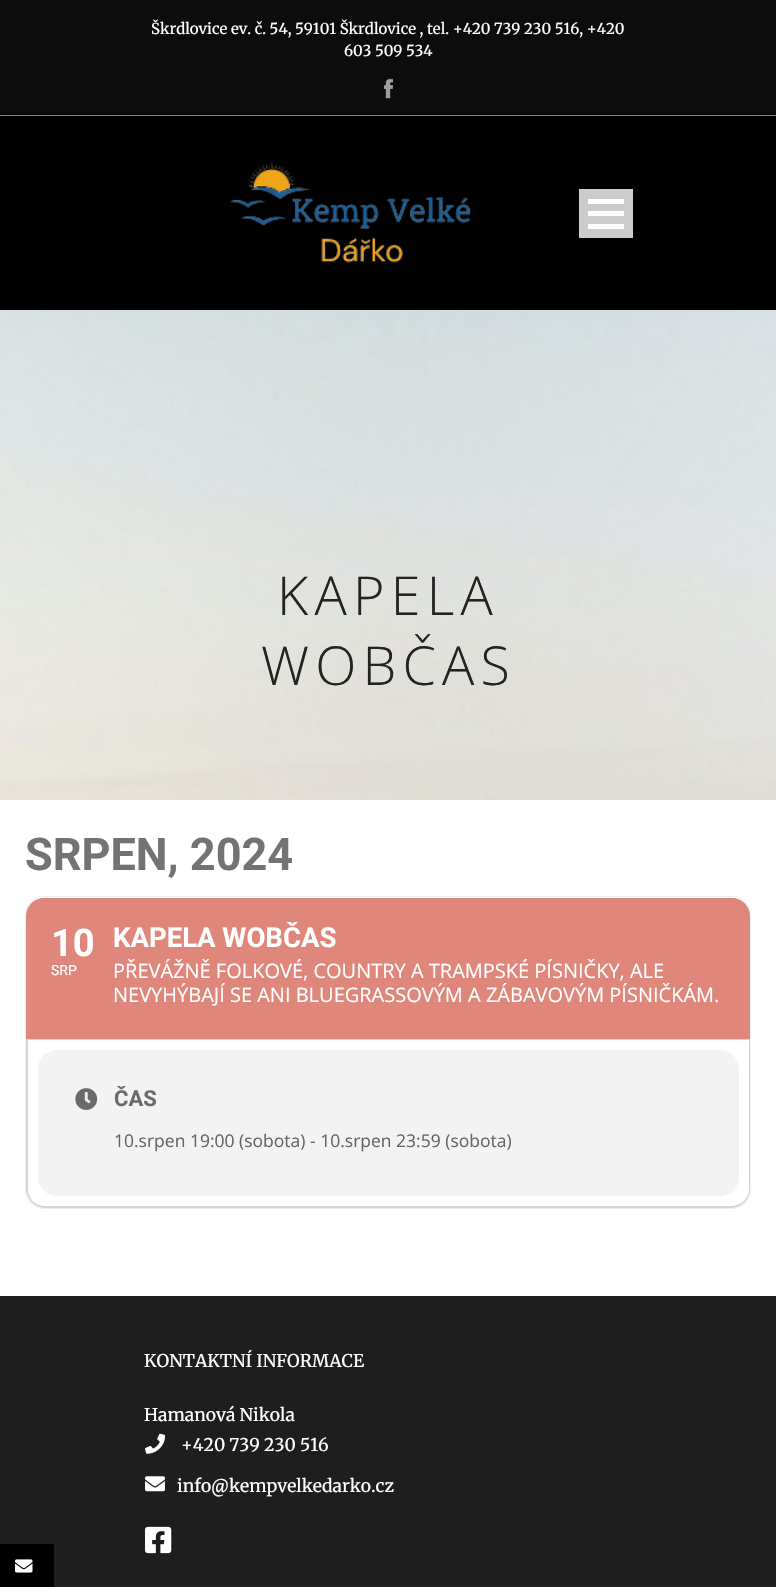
#include "include/core/SkBlurTypes.h"
#include "include/core/SkCanvas.h"
#include "include/core/SkData.h"
#include "include/core/SkFont.h"
#include "include/core/SkFontMgr.h"
#include "include/core/SkImage.h"
#include "include/core/SkMaskFilter.h"
#include "include/core/SkPaint.h"
#include "include/core/SkPathBuilder.h"
#include "include/core/SkTextBlob.h"
#include "include/effects/SkDashPathEffect.h"
#include "include/effects/SkGradientShader.h"
#include "include/utils/SkParsePath.h"

extern sk_sp<SkFontMgr> fontMgr;

void draw(SkCanvas* canvas) {
    SkPaint p;
    p.setAntiAlias(true);
    auto font = [&](const char* family, int weight, float size, bool italic = false) {
        SkFontStyle style(weight, SkFontStyle::kNormal_Width,
            italic ? SkFontStyle::kItalic_Slant : SkFontStyle::kUpright_Slant);
        SkFont result(fontMgr->matchFamilyStyle(family, style), size);
        result.setSubpixel(true);
        return result;
    };
    auto drawTracked = [&](const char* s, float x, float y, const SkFont& font, const SkPaint& ink, float letter, float word) {
        std::vector<SkGlyphID> glyphs(font.countText(s, strlen(s), SkTextEncoding::kUTF8));
        std::vector<float> xs(glyphs.size());
        font.textToGlyphs(s, strlen(s), SkTextEncoding::kUTF8, glyphs);
        font.getXPos(glyphs, xs, x);
        float extra = 0;
        for (size_t i = 0; i < glyphs.size(); i++) {
            xs[i] += extra;
            extra += letter + word * (glyphs[i] == font.unicharToGlyph(' '));
        }
        canvas->drawTextBlob(SkTextBlob::MakeFromPosHGlyphs(glyphs, xs, y, font), 0, 0, ink);
    };
    auto drawPhoto = [&](const char* path, float l, float t, float r, float b) {
        auto image = SkImages::DeferredFromEncodedData(SkData::MakeFromFileName(path));
        canvas->drawImageRect(image, SkRect::MakeLTRB(l, t, r, b), SkSamplingOptions());
    };
    canvas->clear(0xFFFFFFFF);
    p.setColor(0xFF000000);
    canvas->drawRect(SkRect::MakeLTRB(0, 114, 776, 310), p);
    p.setColor(0xFF0C0C0C);
    canvas->drawRect(SkRect::MakeLTRB(0, 0, 776, 114), p);
    auto font1 = font("Merriweather", 400, 15);
    p.setColor(0xFFFFFFFF);
    canvas->drawString("Škrdlovice ev. č. 54, 59101 Škrdlovice , tel. +420 739 230 516, +420", 151, 34, font1, p);
    canvas->drawString("603 509 534", 344, 56, font1, p);
    drawPhoto("media/1.png", 383, 78, 393, 99);
    p.setColor(0xFF898989);
    canvas->drawRect(SkRect::MakeLTRB(0, 115, 776, 116), p);
    drawPhoto("media/2.png", 230, 162, 471, 263);
    {
        const struct { float l, t, r, b; SkColor color; } items[] = {
            {579, 189, 633, 238, 0xFFCCCCCC},
            {588, 224, 624, 229, 0xFFFFFFFF},
            {588, 211, 624, 216, 0xFFFFFFFF},
            {588, 199, 624, 204, 0xFFFFFFFF},
        };
        for (auto [l, t, r, b, color] : items) {
            p.setColor(color);
            canvas->drawRect(SkRect::MakeLTRB(l, t, r, b), p);
        }
    }
    drawPhoto("media/3.png", 0, 310, 776, 800);
    auto font2 = font("Open Sans", 300, 53.75f);
    p.setColor(0xFF232323);
    drawTracked("KAPELA", 277, 615, font2, p, 6.25f, 0);
    drawTracked("WOBČAS", 261, 685, font2, p, 6.25f, 0);
    auto font3 = font("Roboto", 700, 45);
    p.setColor(0xFF737373);
    canvas->drawString("SRPEN, 2024", 25, 870, font3, p);
    p.setStyle(SkPaint::kStroke_Style);
    p.setStrokeWidth(1);
    p.setColor(0xFFEFEEEE);
    canvas->drawRoundRect(SkRect::MakeLTRB(25.5f, 896.5f, 750.5f, 1208.5f), 18.5f, 18.5f, p);
    p.setStyle(SkPaint::kFill_Style);
    p.setColor(0xFFD5D5D5);
    canvas->drawRect(SkRect::MakeLTRB(26, 1039, 750, 1040), p);
    p.setColor(0xFFE0877B);
    canvas->drawPath(SkPathBuilder().moveTo(44, 898).lineTo(732, 898).cubicTo(742, 898, 750, 906, 750, 916).lineTo(750, 1039).lineTo(26, 1039).lineTo(26, 916).cubicTo(26, 906, 34, 898, 44, 898).close().detach(), p);
    auto font4 = font("Roboto", 700, 38);
    p.setColor(0xFFFFFFFF);
    canvas->drawString("10", 51, 956, font4, p);
    auto font5 = font("Roboto", 400, 14);
    canvas->drawString("SRP", 51, 975, font5, p);
    auto font6 = font("Roboto", 700, 27.5f);
    canvas->drawString("KAPELA WOBČAS", 113, 947, font6, p);
    auto font7 = font("Open Sans", 400, 20);
    canvas->drawString("PŘEVÁŽNĚ FOLKOVÉ, COUNTRY A TRAMPSKÉ PÍSNIČKY, ALE", 113, 978, font7, p);
    canvas->drawString("NEVYHÝBAJÍ SE ANI BLUEGRASSOVÝM A ZÁBAVOVÝM PÍSNIČKÁM.", 113, 1002, font7, p);
    p.setColor(0xFFD5D5D5);
    canvas->drawPath(SkPathBuilder(SkPathFillType::kEvenOdd).moveTo(26, 1040).lineTo(750, 1040).lineTo(750, 1189).cubicTo(750, 1199, 742, 1208, 731, 1208).lineTo(45, 1208).cubicTo(35, 1208, 26, 1199, 26, 1189).close().moveTo(28, 1040).lineTo(749, 1040).lineTo(749, 1189).cubicTo(749, 1198, 741, 1206, 731, 1206).lineTo(45, 1206).cubicTo(35, 1206, 28, 1198, 28, 1189).close().detach(), p);
    p.setColor(0xFFF3F3F3);
    canvas->drawRoundRect(SkRect::MakeLTRB(38, 1050, 739, 1196), 19, 19, p);
    drawPhoto("media/4.png", 75, 1088, 98, 1110);
    auto font8 = font("Roboto", 700, 22);
    p.setColor(0xFF6B6B6B);
    canvas->drawString("ČAS", 114, 1106, font8, p);
    auto font9 = font("Open Sans", 400, 17.5f);
    p.setColor(0xFF656565);
    canvas->drawString("10.srpen 19:00 (sobota) - 10.srpen 23:59 (sobota)", 114, 1147, font9, p);
    p.setColor(0xFF1E1E1E);
    canvas->drawRect(SkRect::MakeLTRB(0, 1296, 776, 1587), p);
    auto font10 = font("Merriweather", 400, 17.5f);
    p.setColor(0xFFFFFFFF);
    canvas->drawString("KONTAKTNÍ INFORMACE", 144, 1367, font10, p);
    canvas->drawString("Hamanová Nikola", 144, 1421, font10, p);
    drawPhoto("media/5.png", 145, 1433, 165, 1454);
    canvas->drawString("+420 739 230 516", 181, 1451, font10, p);
    drawPhoto("media/6.png", 145, 1476, 165, 1492);
    canvas->drawString("info@kempvelkedarko.cz", 177, 1492, font10, p);
    drawPhoto("media/7.png", 145, 1526, 172, 1554);
    p.setColor(0xFF000000);
    canvas->drawRect(SkRect::MakeLTRB(0, 1544, 54, 1587), p);
    drawPhoto("media/8.png", 15, 1559, 33, 1573);
}
